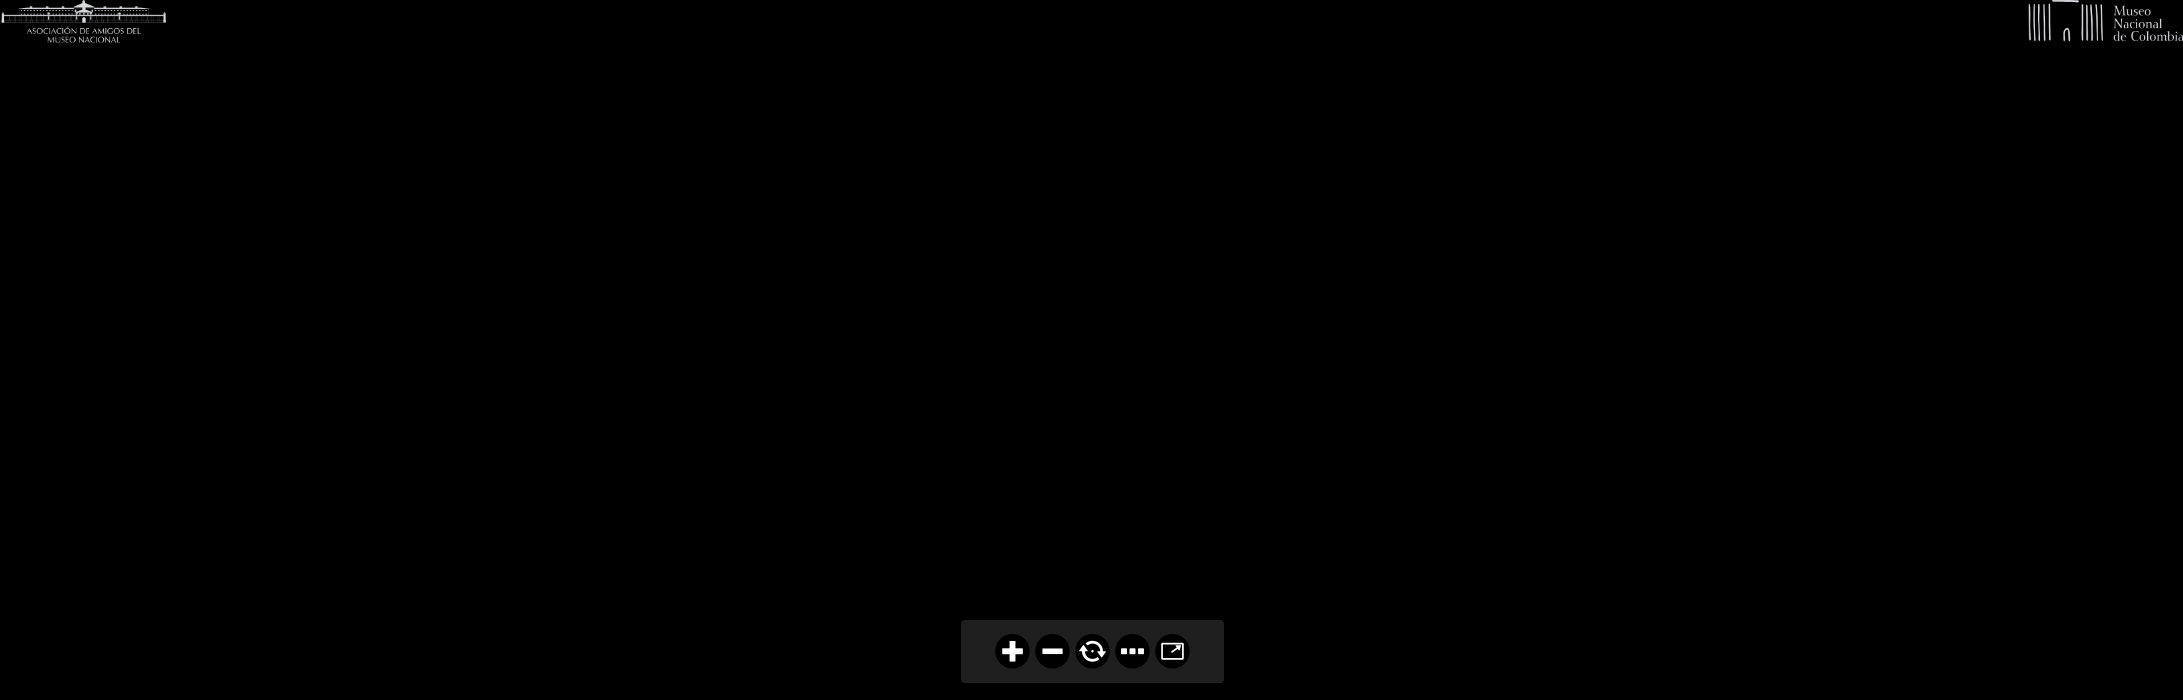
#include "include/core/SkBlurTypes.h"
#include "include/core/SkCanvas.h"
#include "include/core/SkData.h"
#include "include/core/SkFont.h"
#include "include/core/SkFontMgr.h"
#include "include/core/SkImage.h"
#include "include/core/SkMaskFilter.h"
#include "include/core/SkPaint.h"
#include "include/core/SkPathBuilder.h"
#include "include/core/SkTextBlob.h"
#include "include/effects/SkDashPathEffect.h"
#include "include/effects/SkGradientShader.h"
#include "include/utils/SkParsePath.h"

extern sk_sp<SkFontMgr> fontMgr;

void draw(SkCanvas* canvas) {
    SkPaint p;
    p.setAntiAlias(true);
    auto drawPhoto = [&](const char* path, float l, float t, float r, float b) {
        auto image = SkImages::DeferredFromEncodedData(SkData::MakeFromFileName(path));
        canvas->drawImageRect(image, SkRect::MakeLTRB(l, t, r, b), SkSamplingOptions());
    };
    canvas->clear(0xFF000000);
    drawPhoto("media/1.png", 1, 0, 166, 43);
    drawPhoto("media/2.png", 2028, 0, 2183, 42);
    p.setColor(0xFF1F1F1F);
    canvas->drawRoundRect(SkRect::MakeLTRB(961, 620, 1224, 683), 4, 4, p);
    drawPhoto("media/3.png", 995, 634, 1030, 669);
    drawPhoto("media/4.png", 1035, 634, 1070, 669);
    drawPhoto("media/5.png", 1075, 634, 1110, 669);
    drawPhoto("media/6.png", 1115, 634, 1150, 669);
    drawPhoto("media/7.png", 1155, 634, 1190, 669);
}
